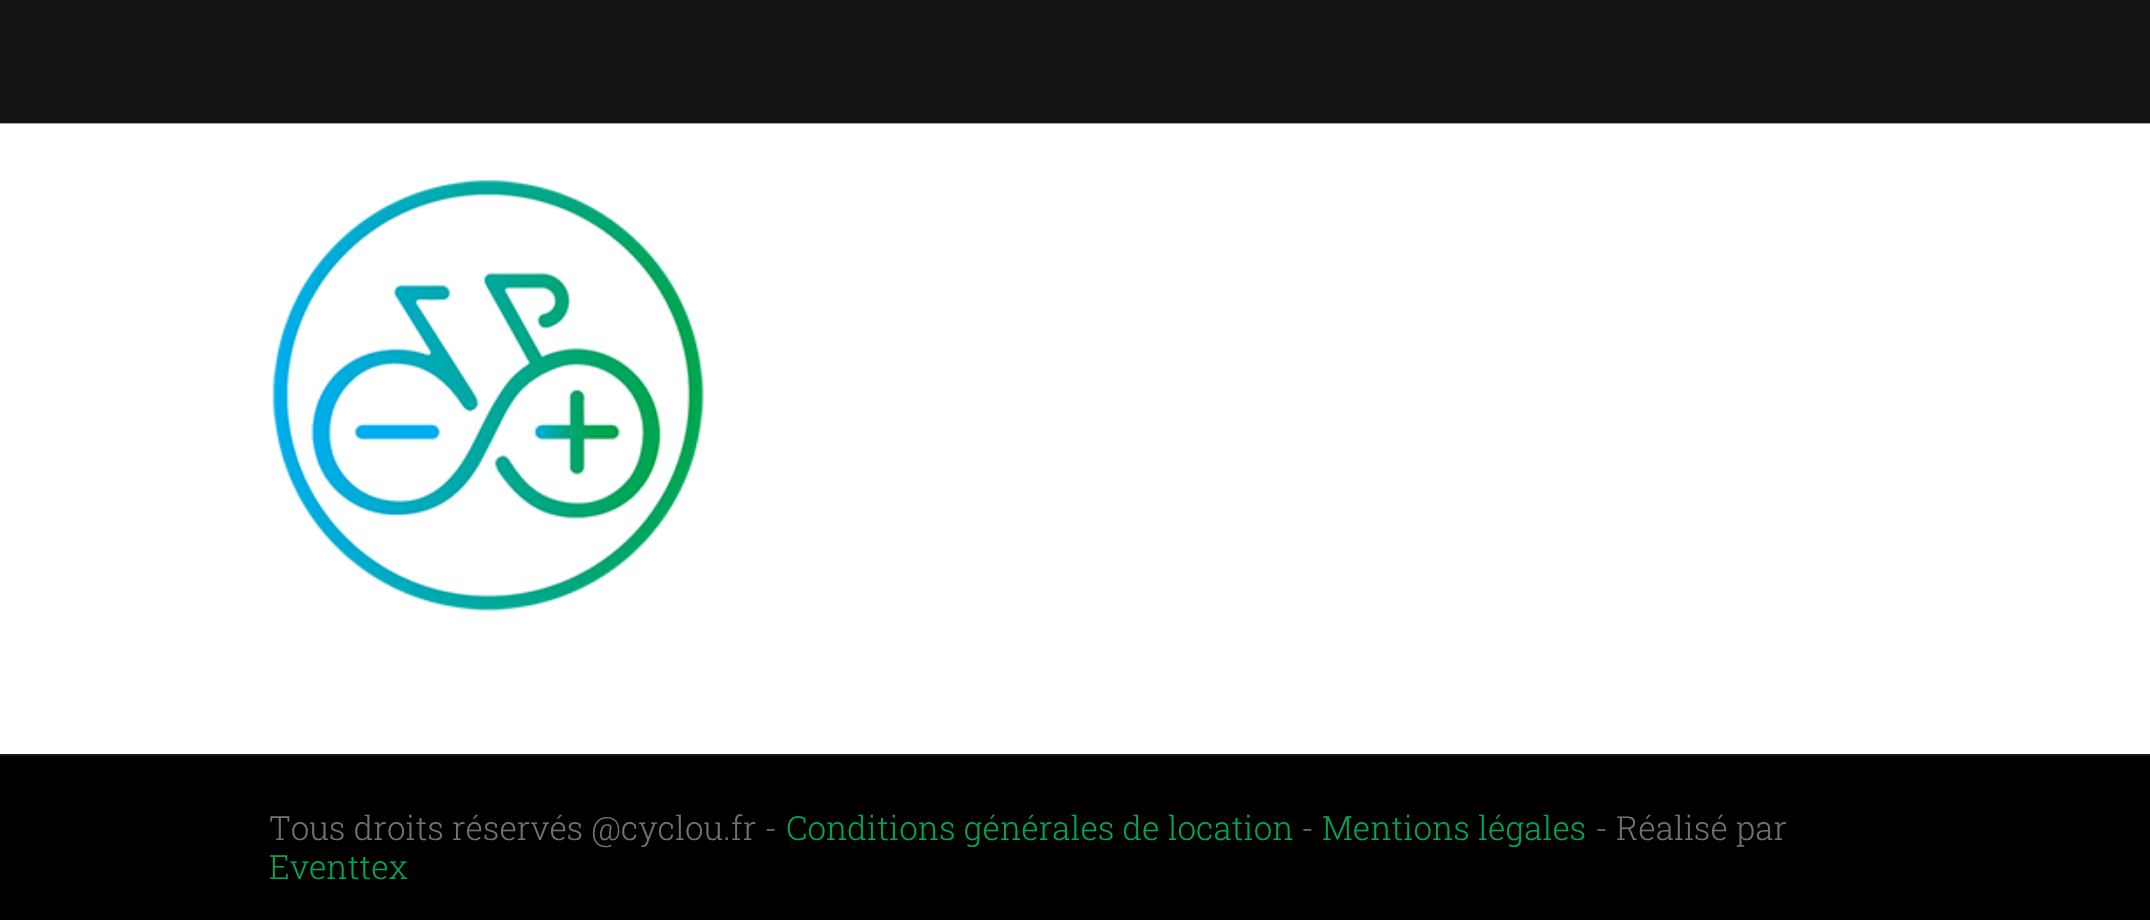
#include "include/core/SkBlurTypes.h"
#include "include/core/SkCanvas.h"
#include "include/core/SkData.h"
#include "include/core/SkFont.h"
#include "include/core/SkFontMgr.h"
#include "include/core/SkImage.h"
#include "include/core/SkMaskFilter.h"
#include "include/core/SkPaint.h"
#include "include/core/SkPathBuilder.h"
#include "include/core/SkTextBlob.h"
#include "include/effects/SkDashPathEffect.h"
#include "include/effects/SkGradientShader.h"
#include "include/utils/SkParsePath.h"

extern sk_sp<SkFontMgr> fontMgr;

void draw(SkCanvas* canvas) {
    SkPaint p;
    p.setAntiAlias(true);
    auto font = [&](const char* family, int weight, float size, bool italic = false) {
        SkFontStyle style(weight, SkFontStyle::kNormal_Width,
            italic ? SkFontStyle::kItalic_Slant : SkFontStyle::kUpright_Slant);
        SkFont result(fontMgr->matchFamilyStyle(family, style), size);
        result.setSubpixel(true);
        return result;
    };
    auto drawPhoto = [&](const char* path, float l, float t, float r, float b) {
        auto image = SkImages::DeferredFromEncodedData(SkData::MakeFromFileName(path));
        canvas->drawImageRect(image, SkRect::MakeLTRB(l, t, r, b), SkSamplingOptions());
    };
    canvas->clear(0xFFFFFFFF);
    p.setColor(0xFF131314);
    canvas->drawRect(SkRect::MakeLTRB(0, 0, 2150, 123), p);
    p.setColor(0xFFA5A5A6);
    canvas->drawRect(SkRect::MakeLTRB(0, 123, 2150, 124), p);
    drawPhoto("media/1.png", 272, 179, 704, 612);
    p.setColor(0xFF000000);
    canvas->drawRect(SkRect::MakeLTRB(0, 756, 2150, 920), p);
    p.setColor(0xFF1A1A1A);
    canvas->drawRect(SkRect::MakeLTRB(0, 754, 2150, 756), p);
    auto font1 = font("Roboto Slab", 300, 33.25f);
    p.setColor(0xFF707176);
    canvas->drawString("Tous droits réservés @cyclou.fr -", 269, 840, font1, p);
    p.setColor(0xFF00A651);
    canvas->drawString("Conditions générales de location", 786, 840, font1, p);
    p.setColor(0xFF707176);
    canvas->drawString("-", 1301, 840, font1, p);
    p.setColor(0xFF00A651);
    canvas->drawString("Mentions légales", 1322, 840, font1, p);
    p.setColor(0xFF707176);
    canvas->drawString("- Réalisé par", 1595, 840, font1, p);
    p.setColor(0xFF00A651);
    canvas->drawString("Eventtex", 269, 879, font1, p);
}
